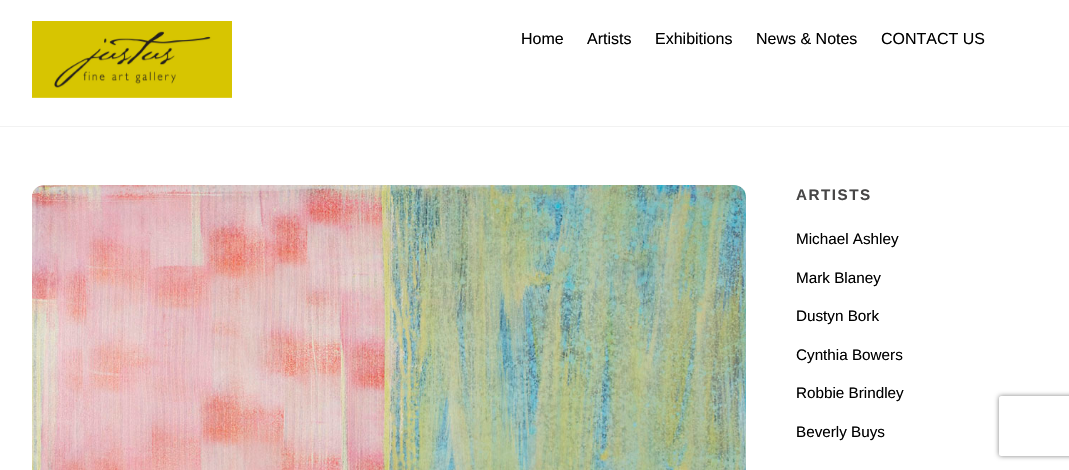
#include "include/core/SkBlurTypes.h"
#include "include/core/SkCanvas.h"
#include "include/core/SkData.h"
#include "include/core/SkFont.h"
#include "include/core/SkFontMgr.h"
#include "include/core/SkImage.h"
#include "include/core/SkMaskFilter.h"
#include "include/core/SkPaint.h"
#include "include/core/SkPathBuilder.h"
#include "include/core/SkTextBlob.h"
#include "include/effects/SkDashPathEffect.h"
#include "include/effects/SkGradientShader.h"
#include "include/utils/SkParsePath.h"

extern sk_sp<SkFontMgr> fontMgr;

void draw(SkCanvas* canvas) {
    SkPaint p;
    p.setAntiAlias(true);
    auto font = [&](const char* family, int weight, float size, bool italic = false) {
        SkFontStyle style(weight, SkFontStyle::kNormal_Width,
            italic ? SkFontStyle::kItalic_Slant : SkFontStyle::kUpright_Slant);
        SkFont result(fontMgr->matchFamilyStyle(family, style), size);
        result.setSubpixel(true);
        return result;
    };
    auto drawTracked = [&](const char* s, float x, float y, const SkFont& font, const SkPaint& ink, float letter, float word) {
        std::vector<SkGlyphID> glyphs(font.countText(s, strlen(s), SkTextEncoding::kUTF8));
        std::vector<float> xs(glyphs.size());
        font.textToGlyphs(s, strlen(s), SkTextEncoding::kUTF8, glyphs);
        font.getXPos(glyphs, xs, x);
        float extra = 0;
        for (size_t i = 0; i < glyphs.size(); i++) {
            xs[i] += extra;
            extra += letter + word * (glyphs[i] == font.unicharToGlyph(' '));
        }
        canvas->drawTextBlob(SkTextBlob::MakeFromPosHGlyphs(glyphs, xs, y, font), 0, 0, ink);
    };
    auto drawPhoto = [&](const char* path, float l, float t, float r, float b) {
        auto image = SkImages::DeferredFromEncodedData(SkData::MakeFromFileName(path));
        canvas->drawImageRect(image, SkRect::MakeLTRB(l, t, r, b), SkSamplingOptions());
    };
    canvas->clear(0xFFFFFFFF);
    p.setColor(0xFFF2F2F2);
    canvas->drawRect(SkRect::MakeLTRB(0, 126, 1069, 127), p);
    drawPhoto("media/1.png", 32, 21, 232, 98);
    auto font1 = font("Liberation Sans", 400, 16);
    p.setColor(0xFF000000);
    {
        const struct { const char* s; float x, y; } items[] = {
            {"Home", 521, 44},
            {"Artists", 587, 44},
            {"Exhibitions", 655, 44},
            {"News & Notes", 756, 44},
            {"CONTACT US", 881, 44},
        };
        for (auto [s, x, y] : items) {
            canvas->drawString(s, x, y, font1, p);
        }
    }
    drawPhoto("media/2.png", 32, 185, 746, 470);
    auto font2 = font("Liberation Sans", 700, 15.25f);
    p.setColor(0xFF474646);
    drawTracked("ARTISTS", 796, 200, font2, p, 1.5f, 0);
    auto font3 = font("Liberation Sans", 400, 15.25f);
    p.setColor(0xFF000000);
    {
        const struct { const char* s; float x, y; } items[] = {
            {"Michael Ashley", 796, 244},
            {"Mark Blaney", 796, 283},
            {"Dustyn Bork", 796, 321},
            {"Cynthia Bowers", 796, 360},
            {"Robbie Brindley", 796, 398},
            {"Beverly Buys", 796, 437},
        };
        for (auto [s, x, y] : items) {
            canvas->drawString(s, x, y, font3, p);
        }
    }
    canvas->save();
    canvas->clipPath(SkPathBuilder(SkPathFillType::kEvenOdd).moveTo(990, 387).lineTo(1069, 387).lineTo(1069, 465).lineTo(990, 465).close().moveTo(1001, 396).lineTo(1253, 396).cubicTo(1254, 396, 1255, 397, 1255, 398).lineTo(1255, 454).cubicTo(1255, 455, 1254, 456, 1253, 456).lineTo(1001, 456).cubicTo(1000, 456, 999, 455, 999, 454).lineTo(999, 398).cubicTo(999, 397, 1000, 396, 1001, 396).close().detach(), true);
    p.setColor(0xFF808080);
    p.setMaskFilter(SkMaskFilter::MakeBlur(kNormal_SkBlurStyle, 2.5f));
    canvas->drawRoundRect(SkRect::MakeLTRB(999, 396, 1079, 456), 2, 2, p);
    p.setMaskFilter(nullptr);
    canvas->restore();
}
